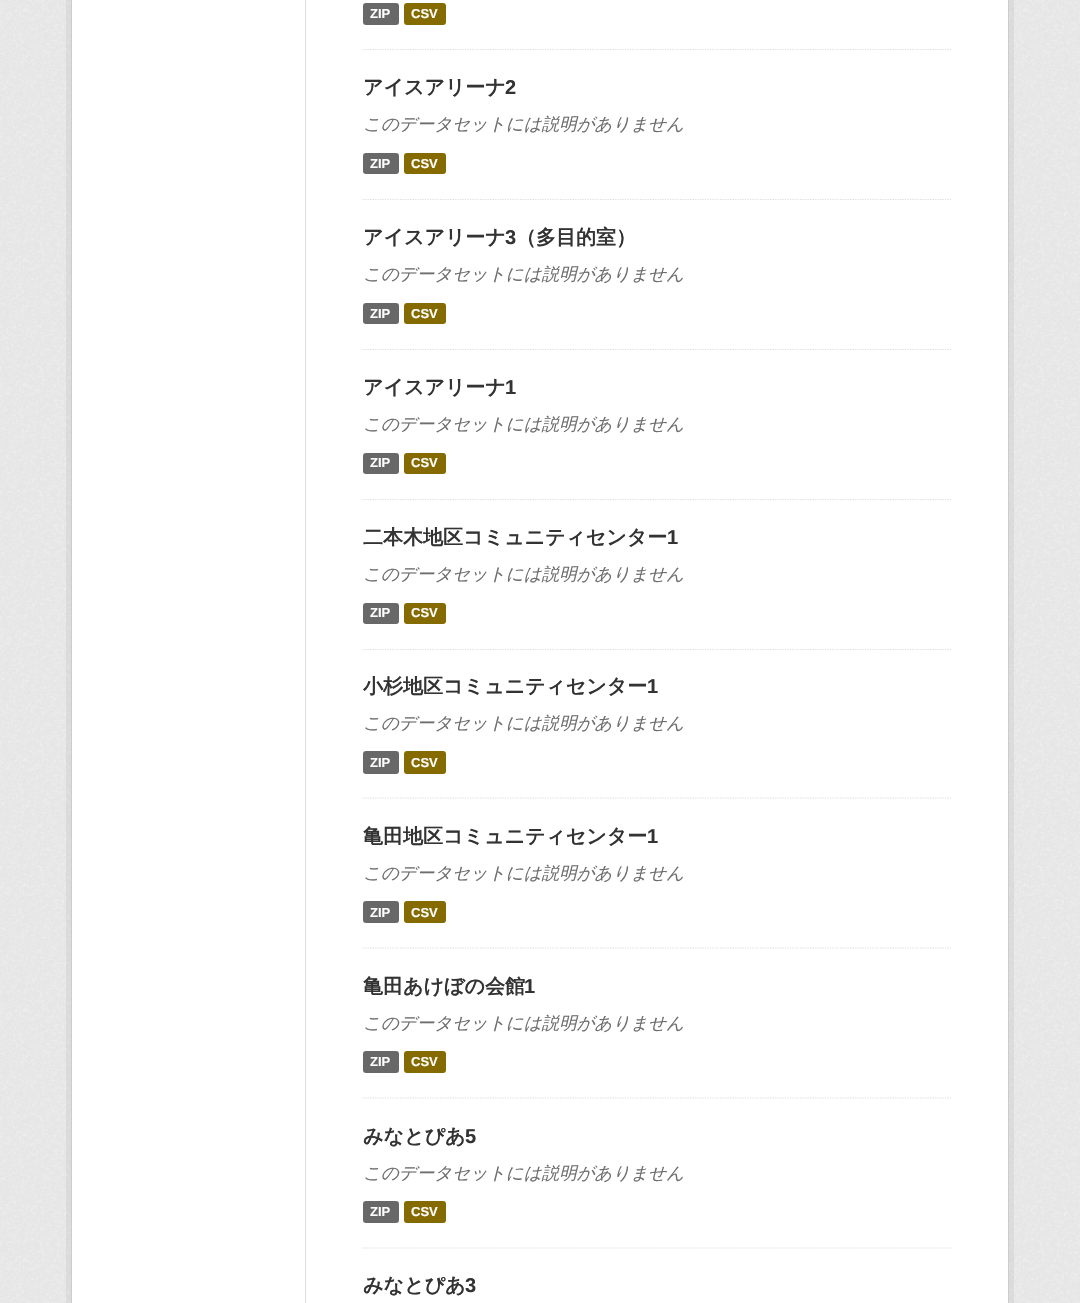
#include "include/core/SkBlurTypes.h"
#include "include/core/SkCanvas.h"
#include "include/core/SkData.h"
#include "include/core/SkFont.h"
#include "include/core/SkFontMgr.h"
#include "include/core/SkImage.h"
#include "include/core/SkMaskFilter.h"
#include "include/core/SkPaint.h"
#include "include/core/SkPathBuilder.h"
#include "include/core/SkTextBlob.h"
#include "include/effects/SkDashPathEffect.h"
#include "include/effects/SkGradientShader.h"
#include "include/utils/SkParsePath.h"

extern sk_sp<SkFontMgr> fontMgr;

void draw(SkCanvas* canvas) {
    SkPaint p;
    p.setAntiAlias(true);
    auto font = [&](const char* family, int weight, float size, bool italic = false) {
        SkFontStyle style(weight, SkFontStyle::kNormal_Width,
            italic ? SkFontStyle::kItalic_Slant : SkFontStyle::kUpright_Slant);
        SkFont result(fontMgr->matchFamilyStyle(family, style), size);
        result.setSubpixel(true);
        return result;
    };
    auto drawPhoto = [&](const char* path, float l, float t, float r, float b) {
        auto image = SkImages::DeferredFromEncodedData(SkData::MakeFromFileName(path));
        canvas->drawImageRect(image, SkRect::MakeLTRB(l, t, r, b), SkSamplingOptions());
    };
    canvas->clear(0xFFEEEEEE);
    drawPhoto("media/1.png", 0, 0, 1080, 1303);
    p.setStyle(SkPaint::kStroke_Style);
    p.setStrokeWidth(5);
    p.setColor(0x0D000000);
    canvas->drawRect(SkRect::MakeLTRB(68.5f, -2.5f, 1011.5f, 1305.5f), p);
    p.setStyle(SkPaint::kFill_Style);
    p.setColor(0xFFFFFFFF);
    canvas->drawRect(SkRect::MakeLTRB(71.5f, -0.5f, 1008.5f, 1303.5f), p);
    p.setStyle(SkPaint::kStroke_Style);
    p.setStrokeWidth(1);
    p.setColor(0xFFCCCCCC);
    canvas->drawRect(SkRect::MakeLTRB(71.5f, -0.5f, 1008.5f, 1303.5f), p);
    p.setStyle(SkPaint::kFill_Style);
    p.setColor(0xFFDDDDDD);
    canvas->drawRect(SkRect::MakeLTRB(305, 0, 306, 1303), p);
    p.setStyle(SkPaint::kStroke_Style);
    p.setStrokeWidth(1.2f);
    p.setPathEffect(SkDashPathEffect::Make({{1.25f, 1.25f}}, 0));
    canvas->drawPath(SkPathBuilder().moveTo(362.5f, 49.5f).lineTo(951, 49.5f).detach(), p);
    p.setPathEffect(nullptr);
    p.setStyle(SkPaint::kFill_Style);
    p.setColor(0xFF686868);
    canvas->drawRoundRect(SkRect::MakeLTRB(363, 3, 399, 25), 3, 3, p);
    auto font1 = font("Liberation Sans", 700, 13);
    p.setColor(0xFFFFFFFF);
    canvas->drawString("ZIP", 370, 18, font1, p);
    p.setColor(0xFF856A00);
    canvas->drawRoundRect(SkRect::MakeLTRB(404, 3, 446, 25), 3, 3, p);
    p.setColor(0xFFFFFFFF);
    canvas->drawString("CSV", 411, 18, font1, p);
    p.setStyle(SkPaint::kStroke_Style);
    p.setColor(0xFFDDDDDD);
    p.setPathEffect(SkDashPathEffect::Make({{1.25f, 1.25f}}, 0));
    canvas->drawPath(SkPathBuilder().moveTo(362.5f, 199.5f).lineTo(951, 199.5f).detach(), p);
    p.setPathEffect(nullptr);
    auto font2 = font("WenQuanYi Zen Hei", 700, 20);
    p.setStyle(SkPaint::kFill_Style);
    p.setColor(0xFF333333);
    canvas->drawString("アイスアリーナ", 363, 94, font2, p);
    auto font3 = font("Liberation Sans", 700, 20);
    canvas->drawString("2", 505, 94, font3, p);
    auto font4 = font("WenQuanYi Zen Hei", 500, 17.5f, true);
    p.setColor(0xFF6E6E6E);
    canvas->drawString("このデータセットには説明がありません", 363, 130, font4, p);
    p.setColor(0xFF686868);
    canvas->drawRoundRect(SkRect::MakeLTRB(363, 153, 399, 174), 3, 3, p);
    p.setColor(0xFFFFFFFF);
    canvas->drawString("ZIP", 370, 168, font1, p);
    p.setColor(0xFF856A00);
    canvas->drawRoundRect(SkRect::MakeLTRB(404, 153, 446, 174), 3, 3, p);
    p.setColor(0xFFFFFFFF);
    canvas->drawString("CSV", 411, 168, font1, p);
    p.setStyle(SkPaint::kStroke_Style);
    p.setColor(0xFFDDDDDD);
    p.setPathEffect(SkDashPathEffect::Make({{1.25f, 1.25f}}, 0));
    canvas->drawPath(SkPathBuilder().moveTo(362.5f, 349.5f).lineTo(951, 349.5f).detach(), p);
    p.setPathEffect(nullptr);
    p.setStyle(SkPaint::kFill_Style);
    p.setColor(0xFF333333);
    canvas->drawString("アイスアリーナ", 363, 244, font2, p);
    canvas->drawString("3", 505, 244, font3, p);
    canvas->drawString("（多目的室）", 516, 244, font2, p);
    p.setColor(0xFF6E6E6E);
    canvas->drawString("このデータセットには説明がありません", 363, 280, font4, p);
    p.setColor(0xFF686868);
    canvas->drawRoundRect(SkRect::MakeLTRB(363, 303, 399, 324), 3, 3, p);
    p.setColor(0xFFFFFFFF);
    canvas->drawString("ZIP", 370, 318, font1, p);
    p.setColor(0xFF856A00);
    canvas->drawRoundRect(SkRect::MakeLTRB(404, 303, 446, 324), 3, 3, p);
    p.setColor(0xFFFFFFFF);
    canvas->drawString("CSV", 411, 318, font1, p);
    p.setStyle(SkPaint::kStroke_Style);
    p.setColor(0xFFDDDDDD);
    p.setPathEffect(SkDashPathEffect::Make({{1.25f, 1.25f}}, 0));
    canvas->drawPath(SkPathBuilder().moveTo(362.5f, 499.5f).lineTo(951, 499.5f).detach(), p);
    p.setPathEffect(nullptr);
    p.setStyle(SkPaint::kFill_Style);
    p.setColor(0xFF333333);
    canvas->drawString("アイスアリーナ", 363, 394, font2, p);
    canvas->drawString("1", 505, 394, font3, p);
    p.setColor(0xFF6E6E6E);
    canvas->drawString("このデータセットには説明がありません", 363, 430, font4, p);
    p.setColor(0xFF686868);
    canvas->drawRoundRect(SkRect::MakeLTRB(363, 453, 399, 474), 3, 3, p);
    p.setColor(0xFFFFFFFF);
    canvas->drawString("ZIP", 370, 467, font1, p);
    p.setColor(0xFF856A00);
    canvas->drawRoundRect(SkRect::MakeLTRB(404, 453, 446, 474), 3, 3, p);
    p.setColor(0xFFFFFFFF);
    canvas->drawString("CSV", 411, 467, font1, p);
    p.setStyle(SkPaint::kStroke_Style);
    p.setColor(0xFFDDDDDD);
    p.setPathEffect(SkDashPathEffect::Make({{1.25f, 1.25f}}, 0));
    canvas->drawPath(SkPathBuilder().moveTo(362.5f, 649.5f).lineTo(951, 649.5f).detach(), p);
    p.setPathEffect(nullptr);
    p.setStyle(SkPaint::kFill_Style);
    p.setColor(0xFF333333);
    canvas->drawString("二本木地区コミュニティセンター", 363, 544, font2, p);
    canvas->drawString("1", 667, 544, font3, p);
    p.setColor(0xFF6E6E6E);
    canvas->drawString("このデータセットには説明がありません", 363, 580, font4, p);
    p.setColor(0xFF686868);
    canvas->drawRoundRect(SkRect::MakeLTRB(363, 603, 399, 624), 3, 3, p);
    p.setColor(0xFFFFFFFF);
    canvas->drawString("ZIP", 370, 617, font1, p);
    p.setColor(0xFF856A00);
    canvas->drawRoundRect(SkRect::MakeLTRB(404, 603, 446, 624), 3, 3, p);
    p.setColor(0xFFFFFFFF);
    canvas->drawString("CSV", 411, 617, font1, p);
    p.setStyle(SkPaint::kStroke_Style);
    p.setColor(0xFFDDDDDD);
    p.setPathEffect(SkDashPathEffect::Make({{1.25f, 1.25f}}, 0));
    canvas->drawPath(SkPathBuilder().moveTo(362.5f, 798).lineTo(951, 798).detach(), p);
    p.setPathEffect(nullptr);
    p.setStyle(SkPaint::kFill_Style);
    p.setColor(0xFF333333);
    canvas->drawString("小杉地区コミュニティセンター", 363, 693, font2, p);
    canvas->drawString("1", 647, 693, font3, p);
    p.setColor(0xFF6E6E6E);
    canvas->drawString("このデータセットには説明がありません", 363, 729, font4, p);
    p.setColor(0xFF686868);
    canvas->drawRoundRect(SkRect::MakeLTRB(363, 751, 399, 774), 3, 3, p);
    p.setColor(0xFFFFFFFF);
    canvas->drawString("ZIP", 370, 767, font1, p);
    p.setColor(0xFF856A00);
    canvas->drawRoundRect(SkRect::MakeLTRB(404, 751, 446, 774), 3, 3, p);
    p.setColor(0xFFFFFFFF);
    canvas->drawString("CSV", 411, 767, font1, p);
    p.setStyle(SkPaint::kStroke_Style);
    p.setColor(0xFFDDDDDD);
    p.setPathEffect(SkDashPathEffect::Make({{1.25f, 1.25f}}, 0));
    canvas->drawPath(SkPathBuilder().moveTo(362.5f, 948).lineTo(951, 948).detach(), p);
    p.setPathEffect(nullptr);
    p.setStyle(SkPaint::kFill_Style);
    p.setColor(0xFF333333);
    canvas->drawString("亀田地区コミュニティセンター", 363, 843, font2, p);
    canvas->drawString("1", 647, 843, font3, p);
    p.setColor(0xFF6E6E6E);
    canvas->drawString("このデータセットには説明がありません", 363, 879, font4, p);
    p.setColor(0xFF686868);
    canvas->drawRoundRect(SkRect::MakeLTRB(363, 901, 399, 923), 3, 3, p);
    p.setColor(0xFFFFFFFF);
    canvas->drawString("ZIP", 370, 917, font1, p);
    p.setColor(0xFF856A00);
    canvas->drawRoundRect(SkRect::MakeLTRB(404, 901, 446, 923), 3, 3, p);
    p.setColor(0xFFFFFFFF);
    canvas->drawString("CSV", 411, 917, font1, p);
    p.setStyle(SkPaint::kStroke_Style);
    p.setColor(0xFFDDDDDD);
    p.setPathEffect(SkDashPathEffect::Make({{1.25f, 1.25f}}, 0));
    canvas->drawPath(SkPathBuilder().moveTo(362.5f, 1098).lineTo(951, 1098).detach(), p);
    p.setPathEffect(nullptr);
    p.setStyle(SkPaint::kFill_Style);
    p.setColor(0xFF333333);
    canvas->drawString("亀田あけぼの会館", 363, 993, font2, p);
    canvas->drawString("1", 524, 993, font3, p);
    p.setColor(0xFF6E6E6E);
    canvas->drawString("このデータセットには説明がありません", 363, 1029, font4, p);
    p.setColor(0xFF686868);
    canvas->drawRoundRect(SkRect::MakeLTRB(363, 1051, 399, 1073), 3, 3, p);
    p.setColor(0xFFFFFFFF);
    canvas->drawString("ZIP", 370, 1066, font1, p);
    p.setColor(0xFF856A00);
    canvas->drawRoundRect(SkRect::MakeLTRB(404, 1051, 446, 1073), 3, 3, p);
    p.setColor(0xFFFFFFFF);
    canvas->drawString("CSV", 411, 1066, font1, p);
    p.setStyle(SkPaint::kStroke_Style);
    p.setColor(0xFFDDDDDD);
    p.setPathEffect(SkDashPathEffect::Make({{1.25f, 1.25f}}, 0));
    canvas->drawPath(SkPathBuilder().moveTo(362.5f, 1248).lineTo(951, 1248).detach(), p);
    p.setPathEffect(nullptr);
    p.setStyle(SkPaint::kFill_Style);
    p.setColor(0xFF333333);
    canvas->drawString("みなとぴあ", 363, 1143, font2, p);
    canvas->drawString("5", 465, 1143, font3, p);
    p.setColor(0xFF6E6E6E);
    canvas->drawString("このデータセットには説明がありません", 363, 1179, font4, p);
    p.setColor(0xFF686868);
    canvas->drawRoundRect(SkRect::MakeLTRB(363, 1201, 399, 1223), 3, 3, p);
    p.setColor(0xFFFFFFFF);
    canvas->drawString("ZIP", 370, 1216, font1, p);
    p.setColor(0xFF856A00);
    canvas->drawRoundRect(SkRect::MakeLTRB(404, 1201, 446, 1223), 3, 3, p);
    p.setColor(0xFFFFFFFF);
    canvas->drawString("CSV", 411, 1216, font1, p);
    p.setColor(0xFF333333);
    canvas->drawString("みなとぴあ", 363, 1292, font2, p);
    canvas->drawString("3", 465, 1292, font3, p);
}
